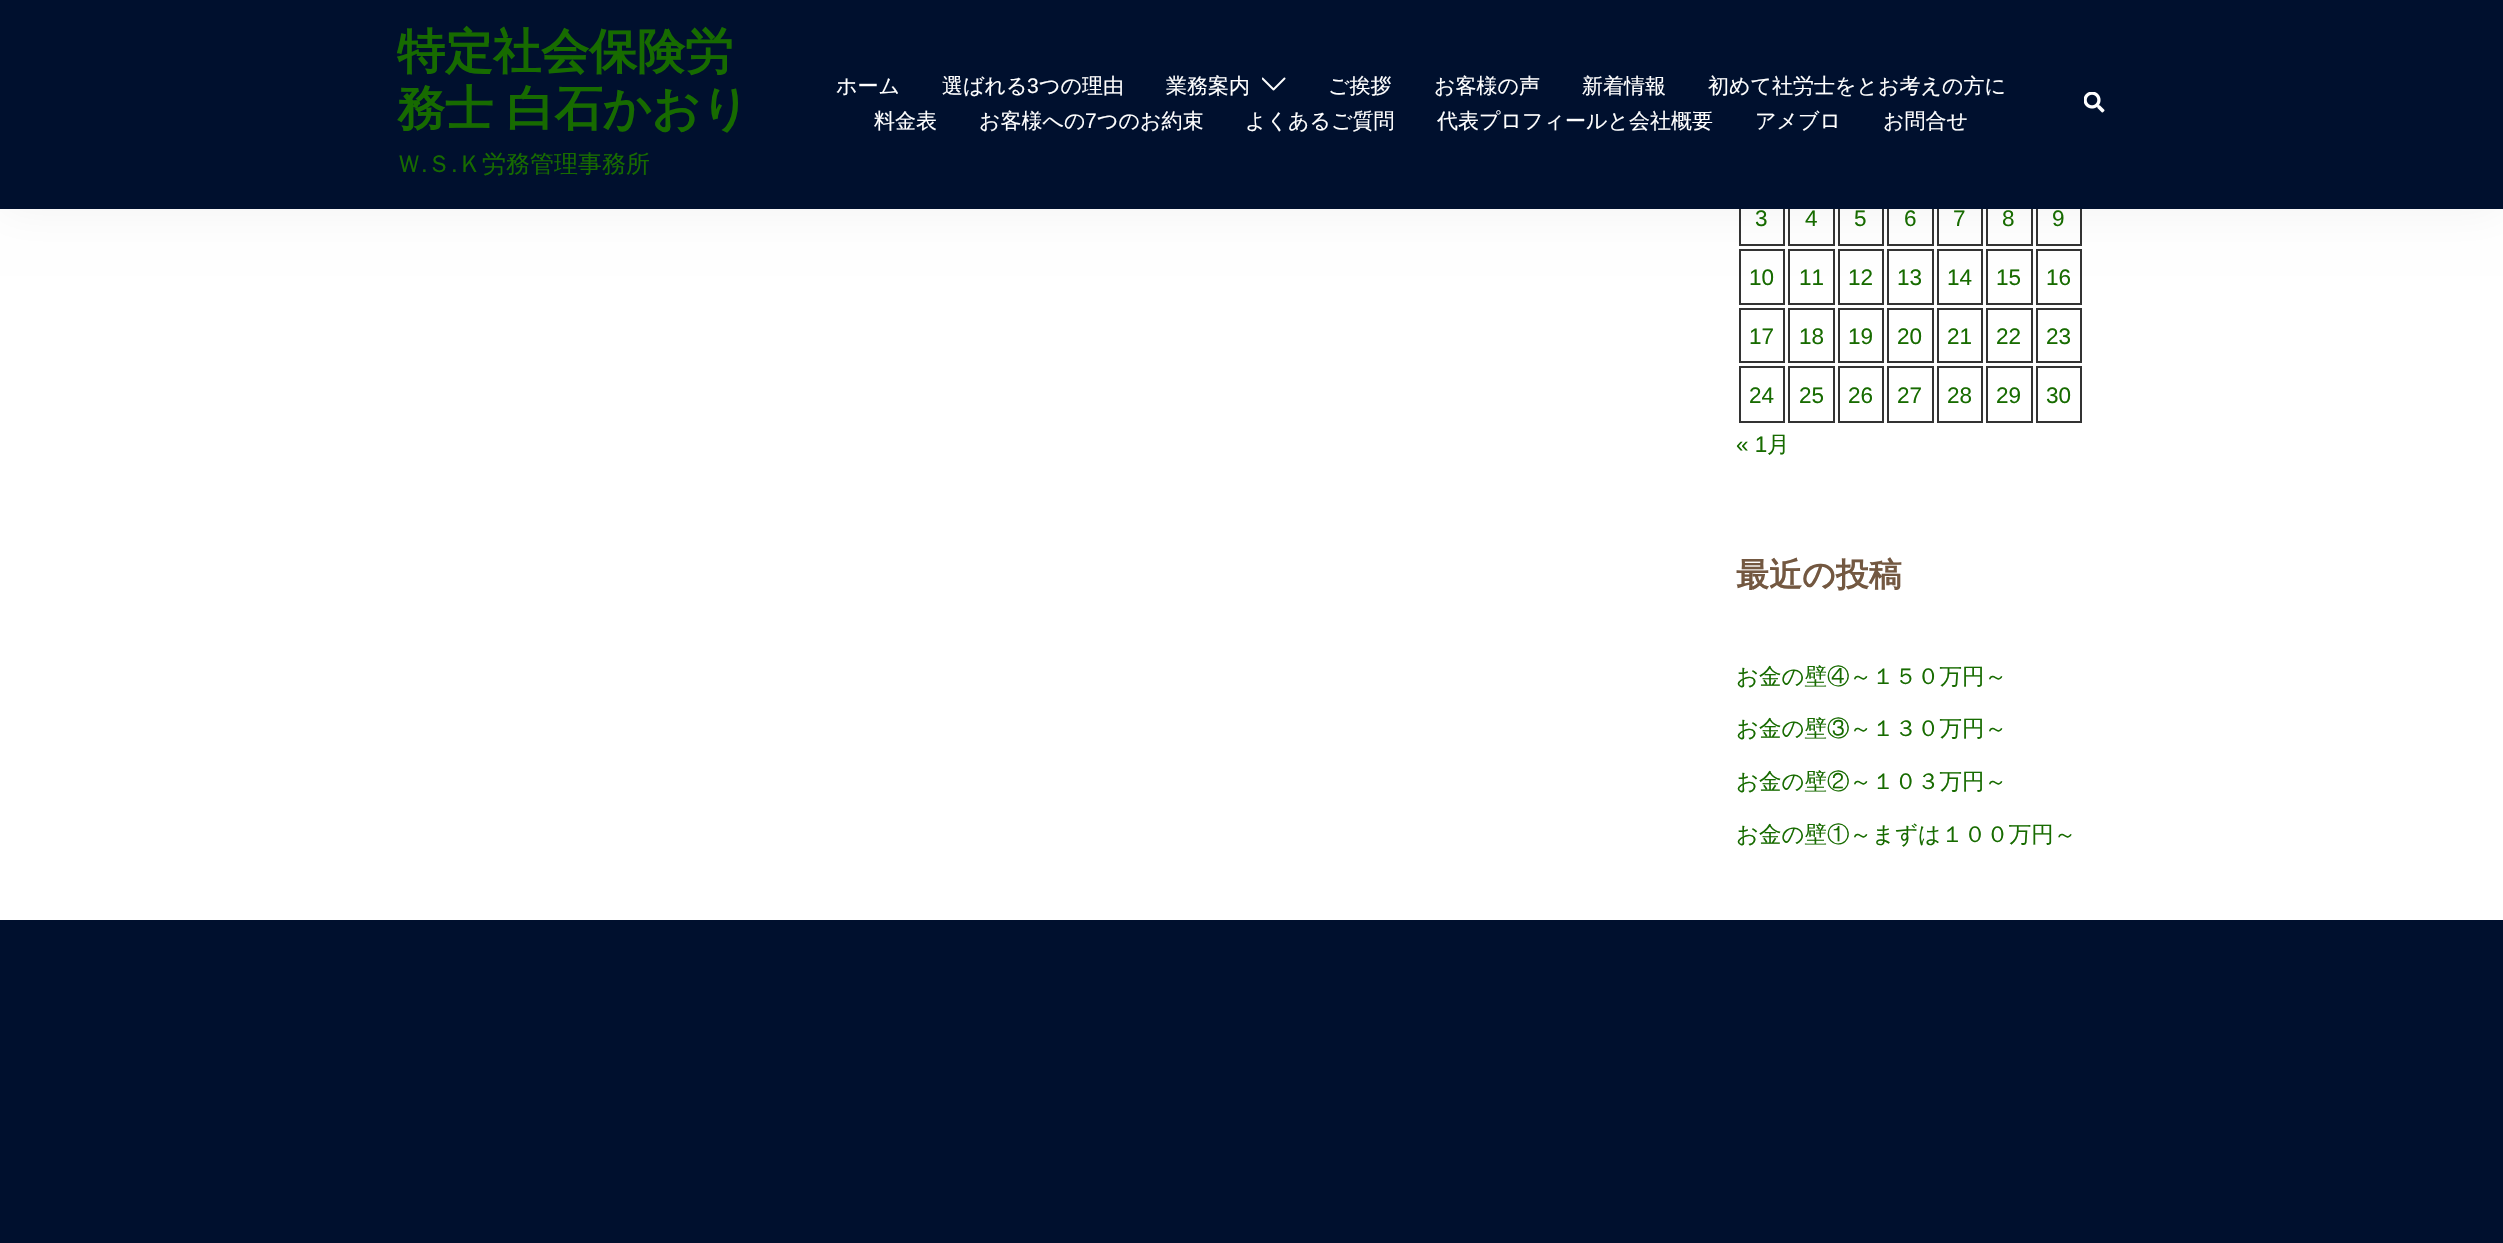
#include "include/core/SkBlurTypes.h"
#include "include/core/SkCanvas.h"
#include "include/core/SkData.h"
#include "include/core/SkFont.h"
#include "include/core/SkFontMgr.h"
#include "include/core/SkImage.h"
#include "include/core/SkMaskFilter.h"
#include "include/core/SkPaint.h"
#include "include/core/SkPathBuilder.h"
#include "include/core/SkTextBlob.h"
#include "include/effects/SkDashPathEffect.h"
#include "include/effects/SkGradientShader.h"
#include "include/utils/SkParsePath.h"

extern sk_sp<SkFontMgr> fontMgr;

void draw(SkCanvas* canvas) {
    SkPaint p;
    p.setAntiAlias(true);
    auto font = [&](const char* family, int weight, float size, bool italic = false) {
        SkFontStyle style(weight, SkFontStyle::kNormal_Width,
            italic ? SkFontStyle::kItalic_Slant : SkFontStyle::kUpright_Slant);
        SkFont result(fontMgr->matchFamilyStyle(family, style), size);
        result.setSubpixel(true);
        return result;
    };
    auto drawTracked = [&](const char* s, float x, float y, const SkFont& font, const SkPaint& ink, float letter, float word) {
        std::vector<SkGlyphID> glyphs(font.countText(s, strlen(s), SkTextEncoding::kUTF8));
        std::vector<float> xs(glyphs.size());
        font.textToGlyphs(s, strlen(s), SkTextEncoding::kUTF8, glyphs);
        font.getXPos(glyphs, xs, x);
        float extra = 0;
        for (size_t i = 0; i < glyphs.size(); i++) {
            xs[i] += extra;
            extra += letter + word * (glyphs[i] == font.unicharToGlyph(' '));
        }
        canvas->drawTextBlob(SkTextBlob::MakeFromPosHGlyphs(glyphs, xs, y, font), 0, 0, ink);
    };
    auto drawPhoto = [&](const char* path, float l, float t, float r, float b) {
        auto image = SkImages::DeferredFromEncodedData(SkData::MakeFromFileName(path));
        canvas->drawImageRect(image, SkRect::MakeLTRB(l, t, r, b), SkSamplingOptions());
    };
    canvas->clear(0xFFFFFFFF);
    p.setStyle(SkPaint::kStroke_Style);
    p.setStrokeWidth(2);
    p.setColor(0xFF333333);
    canvas->drawRect(SkRect::MakeLTRB(1740, 192, 1784, 245), p);
    canvas->drawRect(SkRect::MakeLTRB(1789, 192, 1834, 245), p);
    canvas->drawRect(SkRect::MakeLTRB(1839, 192, 1883, 245), p);
    canvas->drawRect(SkRect::MakeLTRB(1888, 192, 1933, 245), p);
    canvas->drawRect(SkRect::MakeLTRB(1938, 192, 1982, 245), p);
    canvas->drawRect(SkRect::MakeLTRB(1987, 192, 2032, 245), p);
    canvas->drawRect(SkRect::MakeLTRB(2037, 192, 2081, 245), p);
    canvas->drawRect(SkRect::MakeLTRB(1740, 250, 1784, 304), p);
    canvas->drawRect(SkRect::MakeLTRB(1789, 250, 1834, 304), p);
    canvas->drawRect(SkRect::MakeLTRB(1839, 250, 1883, 304), p);
    canvas->drawRect(SkRect::MakeLTRB(1888, 250, 1933, 304), p);
    canvas->drawRect(SkRect::MakeLTRB(1938, 250, 1982, 304), p);
    canvas->drawRect(SkRect::MakeLTRB(1987, 250, 2032, 304), p);
    canvas->drawRect(SkRect::MakeLTRB(2037, 250, 2081, 304), p);
    p.setStyle(SkPaint::kFill_Style);
    p.setColor(0x0D000000);
    p.setMaskFilter(SkMaskFilter::MakeBlur(kNormal_SkBlurStyle, 22.5f));
    canvas->drawRect(SkRect::MakeLTRB(0, 0, 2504, 209), p);
    p.setMaskFilter(nullptr);
    p.setColor(0xFF00102E);
    canvas->drawRect(SkRect::MakeLTRB(0, 0, 2503, 209), p);
    auto font1 = font("WenQuanYi Zen Hei", 700, 48);
    p.setColor(0xFF176B00);
    canvas->drawString("特定社会保険労", 397, 68, font1, p);
    drawTracked("務士 白石かおり", 397, 125, font1, p, 0, -1);
    auto font2 = font("WenQuanYi Zen Hei", 500, 24);
    canvas->drawString("Ｗ", 397, 172, font2, p);
    auto font3 = font("Liberation Sans", 400, 24);
    canvas->drawString(".", 421, 172, font3, p);
    canvas->drawString("Ｓ", 427, 172, font2, p);
    canvas->drawString(".", 451, 172, font3, p);
    canvas->drawString("Ｋ労務管理事務所", 458, 172, font2, p);
    auto font4 = font("WenQuanYi Zen Hei", 500, 21);
    p.setColor(0xFFFFFFFF);
    canvas->drawString("ホーム", 836, 93, font4, p);
    canvas->drawString("選ばれる", 942, 93, font4, p);
    auto font5 = font("Liberation Sans", 400, 21);
    canvas->drawString("3", 1027, 93, font5, p);
    canvas->drawString("つの理由", 1039, 93, font4, p);
    canvas->drawString("業務案内", 1166, 93, font4, p);
    drawPhoto("media/1.png", 1262, 77, 1286, 91);
    {
        const struct { const char* s; float x, y; } items[] = {
            {"ご挨拶", 1328, 93},
            {"お客様の声", 1434, 93},
            {"新着情報", 1582, 93},
            {"初めて社労士をとお考えの方に", 1708, 93},
            {"料金表", 874, 128},
            {"お客様への", 979, 128},
        };
        for (auto [s, x, y] : items) {
            canvas->drawString(s, x, y, font4, p);
        }
    }
    canvas->drawString("7", 1085, 128, font5, p);
    {
        const struct { const char* s; float x, y; } items[] = {
            {"つのお約束", 1097, 128},
            {"よくあるご質問", 1245, 128},
            {"代表プロフィールと会社概要", 1437, 128},
            {"アメブロ", 1755, 128},
            {"お問合せ", 1883, 128},
        };
        for (auto [s, x, y] : items) {
            canvas->drawString(s, x, y, font4, p);
        }
    }
    drawPhoto("media/2.png", 2084, 92, 2105, 113);
    auto font6 = font("Liberation Sans", 400, 22.5f);
    p.setColor(0xFF176B00);
    {
        const struct { const char* s; float x, y; } items[] = {
            {"3", 1755, 226},
            {"4", 1805, 226},
            {"5", 1854, 226},
            {"6", 1904, 226},
            {"7", 1953, 226},
            {"8", 2002, 226},
            {"9", 2052, 226},
            {"10", 1749, 285},
            {"11", 1799, 285},
            {"12", 1848, 285},
            {"13", 1897, 285},
            {"14", 1947, 285},
            {"15", 1996, 285},
            {"16", 2046, 285},
        };
        for (auto [s, x, y] : items) {
            canvas->drawString(s, x, y, font6, p);
        }
    }
    p.setStyle(SkPaint::kStroke_Style);
    p.setColor(0xFF333333);
    canvas->drawRect(SkRect::MakeLTRB(1740, 309, 1784, 362), p);
    p.setStyle(SkPaint::kFill_Style);
    p.setColor(0xFF176B00);
    canvas->drawString("17", 1749, 344, font6, p);
    p.setStyle(SkPaint::kStroke_Style);
    p.setColor(0xFF333333);
    canvas->drawRect(SkRect::MakeLTRB(1789, 309, 1834, 362), p);
    p.setStyle(SkPaint::kFill_Style);
    p.setColor(0xFF176B00);
    canvas->drawString("18", 1799, 344, font6, p);
    p.setStyle(SkPaint::kStroke_Style);
    p.setColor(0xFF333333);
    canvas->drawRect(SkRect::MakeLTRB(1839, 309, 1883, 362), p);
    p.setStyle(SkPaint::kFill_Style);
    p.setColor(0xFF176B00);
    canvas->drawString("19", 1848, 344, font6, p);
    p.setStyle(SkPaint::kStroke_Style);
    p.setColor(0xFF333333);
    canvas->drawRect(SkRect::MakeLTRB(1888, 309, 1933, 362), p);
    p.setStyle(SkPaint::kFill_Style);
    p.setColor(0xFF176B00);
    canvas->drawString("20", 1897, 344, font6, p);
    p.setStyle(SkPaint::kStroke_Style);
    p.setColor(0xFF333333);
    canvas->drawRect(SkRect::MakeLTRB(1938, 309, 1982, 362), p);
    p.setStyle(SkPaint::kFill_Style);
    p.setColor(0xFF176B00);
    canvas->drawString("21", 1947, 344, font6, p);
    p.setStyle(SkPaint::kStroke_Style);
    p.setColor(0xFF333333);
    canvas->drawRect(SkRect::MakeLTRB(1987, 309, 2032, 362), p);
    p.setStyle(SkPaint::kFill_Style);
    p.setColor(0xFF176B00);
    canvas->drawString("22", 1996, 344, font6, p);
    p.setStyle(SkPaint::kStroke_Style);
    p.setColor(0xFF333333);
    canvas->drawRect(SkRect::MakeLTRB(2037, 309, 2081, 362), p);
    p.setStyle(SkPaint::kFill_Style);
    p.setColor(0xFF176B00);
    canvas->drawString("23", 2046, 344, font6, p);
    p.setStyle(SkPaint::kStroke_Style);
    p.setColor(0xFF333333);
    canvas->drawRect(SkRect::MakeLTRB(1740, 367, 1784, 422), p);
    p.setStyle(SkPaint::kFill_Style);
    p.setColor(0xFF176B00);
    canvas->drawString("24", 1749, 403, font6, p);
    p.setStyle(SkPaint::kStroke_Style);
    p.setColor(0xFF333333);
    canvas->drawRect(SkRect::MakeLTRB(1789, 367, 1834, 422), p);
    p.setStyle(SkPaint::kFill_Style);
    p.setColor(0xFF176B00);
    canvas->drawString("25", 1799, 403, font6, p);
    p.setStyle(SkPaint::kStroke_Style);
    p.setColor(0xFF333333);
    canvas->drawRect(SkRect::MakeLTRB(1839, 367, 1883, 422), p);
    p.setStyle(SkPaint::kFill_Style);
    p.setColor(0xFF176B00);
    canvas->drawString("26", 1848, 403, font6, p);
    p.setStyle(SkPaint::kStroke_Style);
    p.setColor(0xFF333333);
    canvas->drawRect(SkRect::MakeLTRB(1888, 367, 1933, 422), p);
    p.setStyle(SkPaint::kFill_Style);
    p.setColor(0xFF176B00);
    canvas->drawString("27", 1897, 403, font6, p);
    p.setStyle(SkPaint::kStroke_Style);
    p.setColor(0xFF333333);
    canvas->drawRect(SkRect::MakeLTRB(1938, 367, 1982, 422), p);
    p.setStyle(SkPaint::kFill_Style);
    p.setColor(0xFF176B00);
    canvas->drawString("28", 1947, 403, font6, p);
    p.setStyle(SkPaint::kStroke_Style);
    p.setColor(0xFF333333);
    canvas->drawRect(SkRect::MakeLTRB(1987, 367, 2032, 422), p);
    p.setStyle(SkPaint::kFill_Style);
    p.setColor(0xFF176B00);
    canvas->drawString("29", 1996, 403, font6, p);
    p.setStyle(SkPaint::kStroke_Style);
    p.setColor(0xFF333333);
    canvas->drawRect(SkRect::MakeLTRB(2037, 367, 2081, 422), p);
    p.setStyle(SkPaint::kFill_Style);
    p.setColor(0xFF176B00);
    canvas->drawString("30", 2046, 403, font6, p);
    canvas->drawString("« 1", 1736, 452, font6, p);
    auto font7 = font("WenQuanYi Zen Hei", 500, 22.5f);
    canvas->drawString("月", 1767, 452, font7, p);
    auto font8 = font("WenQuanYi Zen Hei", 700, 33);
    p.setColor(0xFF735841);
    canvas->drawString("最近の投稿", 1736, 586, font8, p);
    p.setColor(0xFF176B00);
    {
        const struct { const char* s; float x, y; } items[] = {
            {"お金の壁④～１５０万円～", 1736, 684},
            {"お金の壁③～１３０万円～", 1736, 736},
            {"お金の壁②～１０３万円～", 1736, 789},
            {"お金の壁①～まずは１００万円～", 1736, 842},
        };
        for (auto [s, x, y] : items) {
            canvas->drawString(s, x, y, font7, p);
        }
    }
    p.setColor(0xFF00102E);
    canvas->drawRect(SkRect::MakeLTRB(0, 920, 2503, 1243), p);
}
